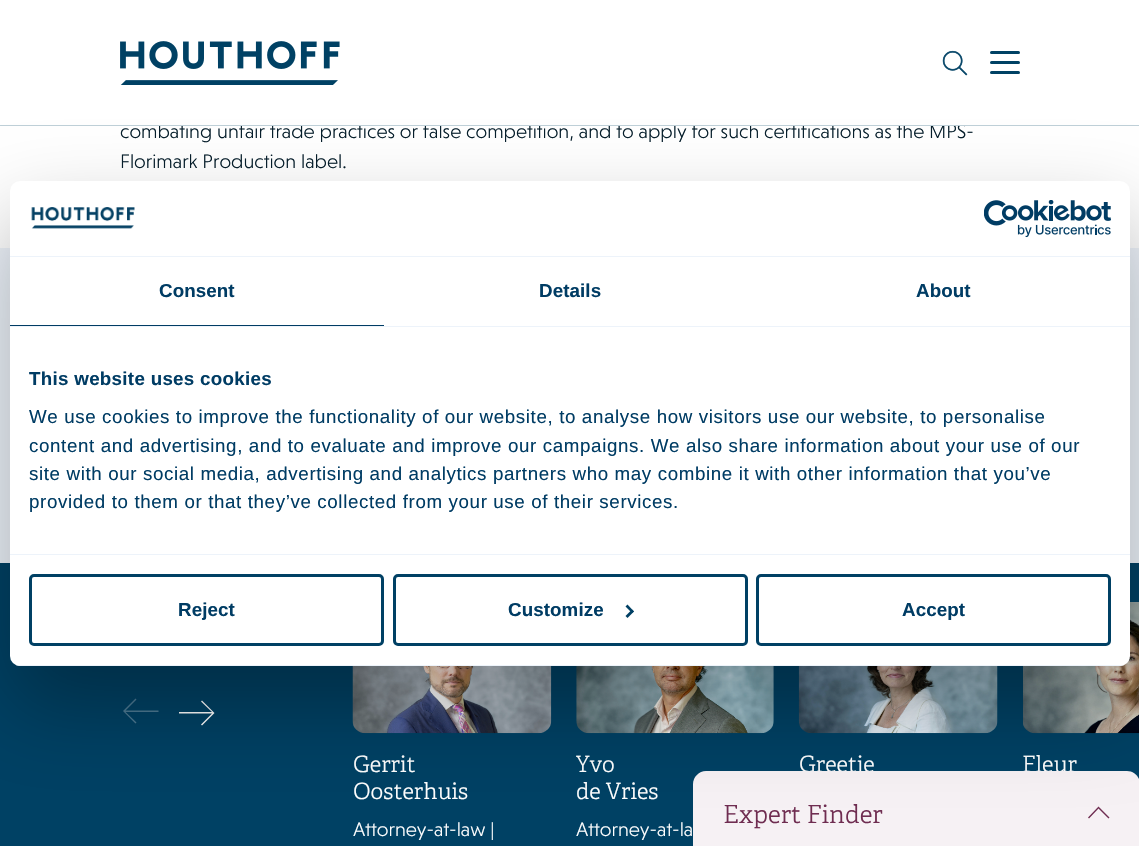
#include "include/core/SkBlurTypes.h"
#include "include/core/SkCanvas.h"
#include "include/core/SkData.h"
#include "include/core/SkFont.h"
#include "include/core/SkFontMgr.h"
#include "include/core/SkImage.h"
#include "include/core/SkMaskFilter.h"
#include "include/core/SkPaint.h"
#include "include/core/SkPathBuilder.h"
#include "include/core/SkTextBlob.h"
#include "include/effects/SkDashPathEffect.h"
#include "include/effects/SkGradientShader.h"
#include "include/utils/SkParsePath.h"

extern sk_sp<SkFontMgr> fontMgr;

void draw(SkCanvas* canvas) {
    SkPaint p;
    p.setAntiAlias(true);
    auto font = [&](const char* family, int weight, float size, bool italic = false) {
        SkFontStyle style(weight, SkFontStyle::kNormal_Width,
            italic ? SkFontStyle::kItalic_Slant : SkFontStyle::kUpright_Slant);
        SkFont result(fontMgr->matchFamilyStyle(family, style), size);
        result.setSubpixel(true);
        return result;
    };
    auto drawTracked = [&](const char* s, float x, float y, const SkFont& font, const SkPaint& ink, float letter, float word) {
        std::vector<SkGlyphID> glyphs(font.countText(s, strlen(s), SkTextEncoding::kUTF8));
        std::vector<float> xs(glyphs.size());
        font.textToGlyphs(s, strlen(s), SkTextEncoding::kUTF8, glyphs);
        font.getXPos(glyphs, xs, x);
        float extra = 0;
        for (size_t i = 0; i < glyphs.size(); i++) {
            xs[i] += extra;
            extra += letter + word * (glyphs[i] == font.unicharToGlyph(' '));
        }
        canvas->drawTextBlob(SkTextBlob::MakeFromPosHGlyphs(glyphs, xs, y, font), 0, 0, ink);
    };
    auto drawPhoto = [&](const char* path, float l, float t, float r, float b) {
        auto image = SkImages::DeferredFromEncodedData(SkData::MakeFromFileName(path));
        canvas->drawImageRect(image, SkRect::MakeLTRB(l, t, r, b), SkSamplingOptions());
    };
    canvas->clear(0xFFFFFFFF);
    auto font1 = font("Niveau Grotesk", 300, 20);
    p.setColor(0xFF061E2B);
    canvas->drawString("combating unfair trade practices or false competition, and to apply for such certifications as the MPS-", 120, 138, font1, p);
    p.setColor(0xFFFFFFFF);
    canvas->drawRect(SkRect::MakeLTRB(159, 124, 965, 125), p);
    p.setColor(0xFFBFD0D8);
    canvas->drawRect(SkRect::MakeLTRB(0, 125, 1139, 126), p);
    drawPhoto("media/1.png", 120, 41, 340, 85);
    drawPhoto("media/2.png", 942, 50, 968, 76);
    p.setColor(0xFF004164);
    canvas->drawRoundRect(SkRect::MakeLTRB(990, 61, 1020, 64), 1.5f, 1.5f, p);
    canvas->drawRoundRect(SkRect::MakeLTRB(990, 51, 1020, 54), 1.5f, 1.5f, p);
    canvas->drawRoundRect(SkRect::MakeLTRB(990, 71, 1020, 74), 1.5f, 1.5f, p);
    p.setColor(0xFF061E2B);
    canvas->drawString("Florimark Production label.", 120, 168, font1, p);
    p.setColor(0xFFEDF3FA);
    canvas->drawRect(SkRect::MakeLTRB(0, 248, 1139, 563), p);
    p.setColor(0xFF004164);
    canvas->drawRect(SkRect::MakeLTRB(0, 563, 1139, 846), p);
    p.setColor(0xFF4D7A93);
    canvas->drawPath(SkPathBuilder().moveTo(135.5f, 698.5f).lineTo(136.5f, 699.5f).lineTo(125.5f, 710.5f).lineTo(158.5f, 710.5f).lineTo(158.5f, 712).lineTo(125.5f, 712).lineTo(136.5f, 722.5f).lineTo(135.5f, 723.5f).lineTo(123, 711).close().detach(), p);
    p.setColor(0xFFFFFFFF);
    canvas->drawPath(SkPathBuilder().moveTo(202, 725.5f).lineTo(201, 724.5f).lineTo(212, 713.5f).lineTo(179, 713.5f).lineTo(179, 712).lineTo(212, 712).lineTo(201, 701.5f).lineTo(202, 700.5f).lineTo(214.5f, 713).close().detach(), p);
    drawPhoto("media/3.png", 352, 666, 552, 734);
    auto font2 = font("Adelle", 300, 22.5f);
    canvas->drawString("Gerrit", 353, 772, font2, p);
    canvas->drawString("Oosterhuis", 353, 799, font2, p);
    canvas->drawString("Attorney-at-law |", 353, 836, font1, p);
    drawPhoto("media/4.png", 576, 666, 774, 734);
    canvas->drawString("Yvo", 576, 772, font2, p);
    canvas->drawString("de Vries", 576, 799, font2, p);
    canvas->drawString("Attorney-at-la", 576, 836, font1, p);
    drawPhoto("media/5.png", 798, 666, 998, 734);
    canvas->drawString("Greetje", 799, 772, font2, p);
    drawPhoto("media/6.png", 1023, 602, 1139, 734);
    canvas->drawString("Fleur", 1022, 772, font2, p);
    p.setColor(0xFFF6F1F4);
    canvas->drawPath(SkPathBuilder().moveTo(706, 771).lineTo(1127, 771).cubicTo(1134, 771, 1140, 777, 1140, 784).lineTo(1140, 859).lineTo(693, 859).lineTo(693, 784).cubicTo(693, 777, 699, 771, 706, 771).close().detach(), p);
    p.setColor(0xFF6F2D51);
    canvas->drawPath(SkPathBuilder().moveTo(1098.5f, 808.5f).lineTo(1089, 818.5f).lineTo(1088, 817.5f).lineTo(1098.5f, 806.5f).lineTo(1109.5f, 817.5f).lineTo(1108.5f, 818.5f).close().detach(), p);
    p.setColor(0x4D000000);
    p.setMaskFilter(SkMaskFilter::MakeBlur(kNormal_SkBlurStyle, 42.5f));
    canvas->drawRoundRect(SkRect::MakeLTRB(10, 221, 1130, 706), 10, 10, p);
    p.setMaskFilter(nullptr);
    p.setColor(0xFFFFFFFF);
    canvas->drawRoundRect(SkRect::MakeLTRB(10, 181, 1130, 666), 10, 10, p);
    p.setColor(0xFFEDF3FA);
    canvas->drawRect(SkRect::MakeLTRB(10, 256, 1130, 257), p);
    drawPhoto("media/7.png", 31, 207, 135, 229);
    drawPhoto("media/8.png", 984, 200, 1111, 238);
    canvas->drawRect(SkRect::MakeLTRB(10, 326, 1130, 327), p);
    p.setColor(0xFF003C64);
    canvas->drawRect(SkRect::MakeLTRB(10, 325, 384, 326), p);
    auto font3 = font("Liberation Sans", 700, 18.75f);
    {
        const struct { const char* s; float x, y; } items[] = {
            {"Consent", 159, 297},
            {"Details", 539, 297},
            {"About", 916, 297},
        };
        for (auto [s, x, y] : items) {
            drawTracked(s, x, y, font3, p, 0.1f, 0);
        }
    }
    p.setColor(0xFFEDF3FA);
    canvas->drawRect(SkRect::MakeLTRB(10, 554, 1130, 555), p);
    p.setColor(0xFF003C64);
    drawTracked("This website uses cookies", 29, 385, font3, p, 0.3f, 0);
    auto font4 = font("Liberation Sans", 400, 18.75f);
    {
        const struct { const char* s; float x, y; } items[] = {
            {"We use cookies to improve the functionality of our website, to analyse how visitors use our website, to personalise", 29, 423},
            {"content and advertising, and to evaluate and improve our campaigns. We also share information about your use of our", 29, 452},
            {"site with our social media, advertising and analytics partners who may combine it with other information that you’ve", 29, 480},
            {"provided to them or that they’ve collected from your use of their services.", 29, 508},
        };
        for (auto [s, x, y] : items) {
            drawTracked(s, x, y, font4, p, 0.62f, 0);
        }
    }
    canvas->save();
    canvas->clipPath(SkPathBuilder().moveTo(20, 181).lineTo(1120, 181).cubicTo(1125.5f, 181, 1130, 185.5f, 1130, 191).lineTo(1130, 656).cubicTo(1130, 661.5f, 1125.5f, 666, 1120, 666).lineTo(20, 666).cubicTo(14.5f, 666, 10, 661.5f, 10, 656).lineTo(10, 191).cubicTo(10, 185.5f, 14.5f, 181, 20, 181).close().detach(), true);
    p.setColor(0xFFEDF3FA);
    canvas->drawRect(SkRect::MakeLTRB(10, 665, 1130, 666), p);
    canvas->restore();
    p.setStyle(SkPaint::kStroke_Style);
    p.setStrokeWidth(3);
    p.setColor(0xFF004064);
    canvas->drawRoundRect(SkRect::MakeLTRB(30.5f, 575.5f, 382.5f, 644.5f), 3.5f, 3.5f, p);
    p.setStyle(SkPaint::kFill_Style);
    p.setColor(0xFF003C64);
    drawTracked("Reject", 178, 616, font3, p, 0.1f, 0);
    p.setStyle(SkPaint::kStroke_Style);
    p.setColor(0xFF004064);
    canvas->drawRoundRect(SkRect::MakeLTRB(394.5f, 575.5f, 746.5f, 644.5f), 3.5f, 3.5f, p);
    p.setStyle(SkPaint::kFill_Style);
    p.setColor(0xFF003C64);
    drawTracked("Customize", 508, 616, font3, p, 0.1f, 0);
    p.setColor(0xFF004064);
    canvas->drawPath(SkPathBuilder().moveTo(627.5f, 604.5f).lineTo(634, 611.5f).lineTo(632, 613).lineTo(625.5f, 606.5f).close().detach(), p);
    canvas->drawPath(SkPathBuilder().moveTo(632, 609.5f).lineTo(634, 611.5f).lineTo(627.5f, 618).lineTo(625.5f, 616).close().detach(), p);
    p.setStyle(SkPaint::kStroke_Style);
    canvas->drawRoundRect(SkRect::MakeLTRB(757.5f, 575.5f, 1109.5f, 644.5f), 3.5f, 3.5f, p);
    p.setStyle(SkPaint::kFill_Style);
    p.setColor(0xFF003C64);
    drawTracked("Accept", 902, 616, font3, p, 0.1f, 0);
    auto font5 = font("Adelle", 300, 25);
    p.setColor(0xFF6F2D51);
    canvas->drawString("Expert Finder", 723, 823, font5, p);
}
